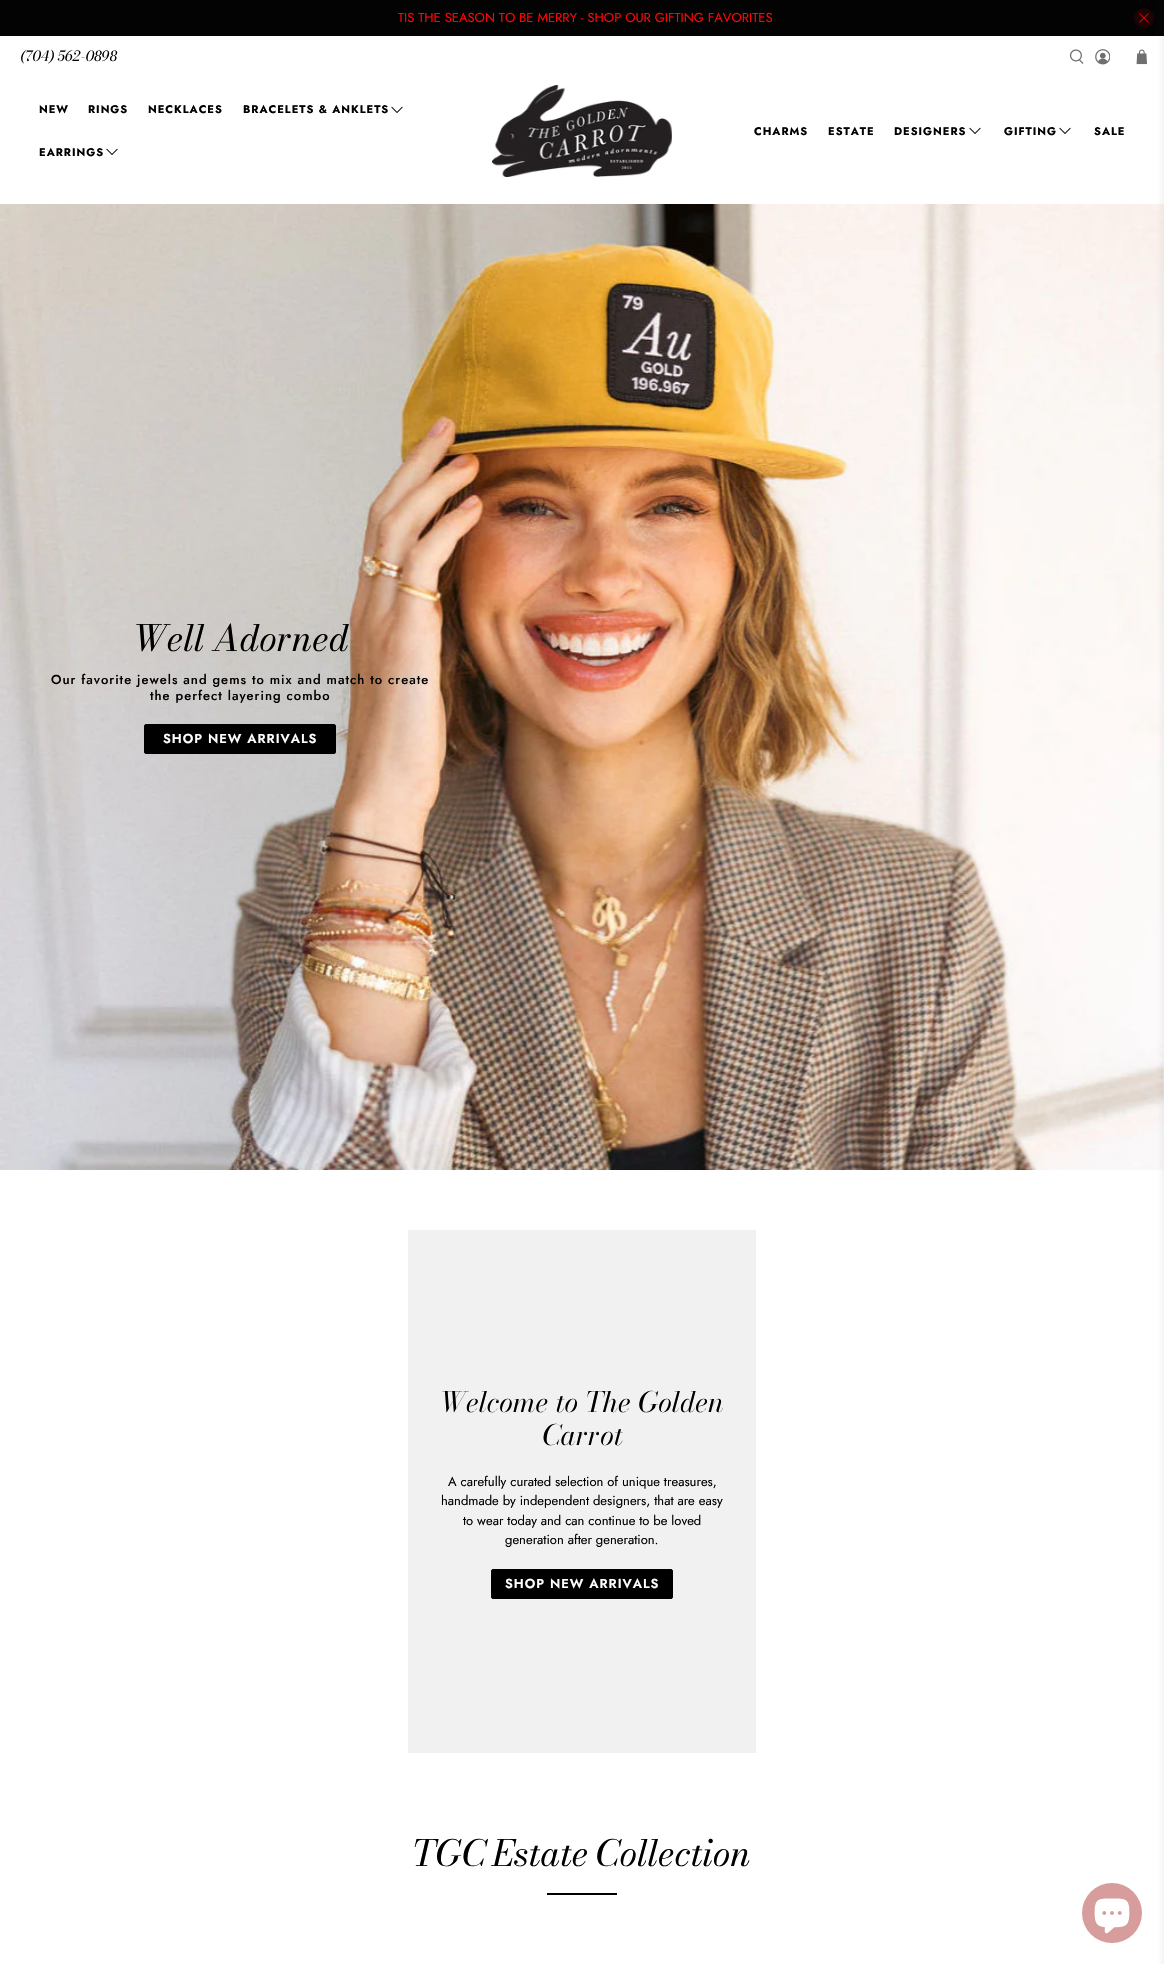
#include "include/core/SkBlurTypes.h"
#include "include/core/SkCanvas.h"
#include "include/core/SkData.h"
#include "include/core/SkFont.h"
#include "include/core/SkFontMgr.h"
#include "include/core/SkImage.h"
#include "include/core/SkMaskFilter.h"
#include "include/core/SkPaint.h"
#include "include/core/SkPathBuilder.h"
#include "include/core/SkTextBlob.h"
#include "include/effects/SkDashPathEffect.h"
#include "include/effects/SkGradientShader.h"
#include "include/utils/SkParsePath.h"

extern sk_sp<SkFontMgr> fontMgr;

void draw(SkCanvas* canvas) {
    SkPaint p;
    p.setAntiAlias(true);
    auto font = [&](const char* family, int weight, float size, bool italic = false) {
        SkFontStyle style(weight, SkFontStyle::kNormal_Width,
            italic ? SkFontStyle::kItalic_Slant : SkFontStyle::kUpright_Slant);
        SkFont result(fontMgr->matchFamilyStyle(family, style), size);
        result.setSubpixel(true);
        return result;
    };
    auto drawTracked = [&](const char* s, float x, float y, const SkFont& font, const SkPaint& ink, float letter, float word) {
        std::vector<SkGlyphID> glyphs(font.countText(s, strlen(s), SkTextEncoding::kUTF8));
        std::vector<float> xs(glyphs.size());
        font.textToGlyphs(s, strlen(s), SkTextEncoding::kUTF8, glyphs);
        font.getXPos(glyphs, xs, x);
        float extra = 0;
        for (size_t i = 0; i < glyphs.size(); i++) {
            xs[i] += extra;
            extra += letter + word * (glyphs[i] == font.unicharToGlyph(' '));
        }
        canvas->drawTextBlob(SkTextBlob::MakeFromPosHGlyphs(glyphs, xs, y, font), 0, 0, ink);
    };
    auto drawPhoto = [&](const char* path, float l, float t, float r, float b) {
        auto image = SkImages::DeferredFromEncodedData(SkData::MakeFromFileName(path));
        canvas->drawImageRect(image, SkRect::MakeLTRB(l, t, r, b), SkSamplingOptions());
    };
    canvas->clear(0xFFFFFFFF);
    p.setColor(0xFF040303);
    canvas->drawRect(SkRect::MakeLTRB(0, 0, 1164, 36), p);
    auto font1 = font("Jost", 400, 13);
    p.setColor(0xFFFF0404);
    canvas->drawString("TIS THE SEASON TO BE MERRY - SHOP OUR GIFTING FAVORITES", 398, 22, font1, p);
    p.setColor(0xFF1D0303);
    canvas->drawCircle(1144, 18, 10, p);
    drawPhoto("media/1.png", 1139, 13, 1149, 23);
    drawPhoto("media/7.png", 0, 204, 1164, 1170);
    p.setColor(0x1A0A0A0A);
    p.setMaskFilter(SkMaskFilter::MakeBlur(kNormal_SkBlurStyle, 4));
    canvas->drawRect(SkRect::MakeLTRB(1164, 8, 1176, 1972), p);
    p.setMaskFilter(nullptr);
    auto font2 = font("Bodoni Moda", 400, 14, true);
    p.setColor(0xFF000000);
    canvas->drawString("(704) 562-0898", 20, 61, font2, p);
    drawPhoto("media/2.png", 1069, 49, 1084, 64);
    drawPhoto("media/3.png", 1095, 49, 1110, 65);
    drawPhoto("media/4.png", 1136, 49, 1147, 65);
    auto font3 = font("Jost", 700, 11);
    {
        const struct { const char* s; float x, y; } items[] = {
            {"NEW", 39, 113},
            {"RINGS", 88, 113},
            {"NECKLACES", 148, 113},
            {"BRACELETS & ANKLETS", 243, 113},
        };
        for (auto [s, x, y] : items) {
            drawTracked(s, x, y, font3, p, 1, 0);
        }
    }
    drawPhoto("media/5.png", 391, 106, 403, 113);
    drawTracked("EARRINGS", 39, 156, font3, p, 1, 0);
    drawPhoto("media/5.png", 106, 148, 118, 155);
    drawPhoto("media/6.png", 492, 85, 672, 177);
    {
        const struct { const char* s; float x, y; } items[] = {
            {"CHARMS", 754, 135},
            {"ESTATE", 828, 135},
            {"DESIGNERS", 894, 135},
        };
        for (auto [s, x, y] : items) {
            drawTracked(s, x, y, font3, p, 1, 0);
        }
    }
    drawPhoto("media/5.png", 969, 127, 981, 134);
    drawTracked("GIFTING", 1004, 135, font3, p, 1, 0);
    drawPhoto("media/5.png", 1059, 127, 1071, 134);
    drawTracked("SALE", 1094, 135, font3, p, 1, 0);
    auto font4 = font("Bodoni Moda", 400, 36, true);
    canvas->drawString("Well Adorned", 132, 651, font4, p);
    auto font5 = font("Jost", 500, 13);
    drawTracked("Our favorite jewels and gems to mix and match to create", 51, 684, font5, p, 1, 0);
    drawTracked("the perfect layering combo", 150, 700, font5, p, 1, 0);
    canvas->drawRoundRect(SkRect::MakeLTRB(144.5f, 724.5f, 335.5f, 753.5f), 1.5f, 1.5f, p);
    p.setStyle(SkPaint::kStroke_Style);
    p.setStrokeWidth(1);
    canvas->drawRoundRect(SkRect::MakeLTRB(144.5f, 724.5f, 335.5f, 753.5f), 1.5f, 1.5f, p);
    auto font6 = font("Jost", 600, 13);
    p.setStyle(SkPaint::kFill_Style);
    p.setColor(0xFFFFFFFF);
    drawTracked("SHOP NEW ARRIVALS", 163, 743, font6, p, 1, 0);
    p.setColor(0xFFF1F1F1);
    canvas->drawRect(SkRect::MakeLTRB(408, 1230, 756, 1753), p);
    auto font7 = font("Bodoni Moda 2", 400, 28, true);
    p.setColor(0xFF000000);
    canvas->drawString("Welcome to The Golden", 439, 1412, font7, p);
    canvas->drawString("Carrot", 542, 1445, font7, p);
    {
        const struct { const char* s; float x, y; } items[] = {
            {"A carefully curated selection of unique treasures,", 448, 1486},
            {"handmade by independent designers, that are easy", 441, 1505},
            {"to wear today and can continue to be loved", 463, 1525},
            {"generation after generation.", 505, 1544},
        };
        for (auto [s, x, y] : items) {
            canvas->drawString(s, x, y, font1, p);
        }
    }
    canvas->drawRoundRect(SkRect::MakeLTRB(491.5f, 1569.5f, 672.5f, 1598.5f), 1.5f, 1.5f, p);
    p.setStyle(SkPaint::kStroke_Style);
    canvas->drawRoundRect(SkRect::MakeLTRB(491.5f, 1569.5f, 672.5f, 1598.5f), 1.5f, 1.5f, p);
    p.setStyle(SkPaint::kFill_Style);
    p.setColor(0xFFFFFFFF);
    drawTracked("SHOP NEW ARRIVALS", 505, 1588, font6, p, 1, 0);
    p.setColor(0xFF000000);
    drawTracked("TGC Estate Collection", 412, 1866, font4, p, 0, -2);
    canvas->drawRect(SkRect::MakeLTRB(547, 1893, 617, 1895), p);
    p.setColor(0xFFD79C9C);
    canvas->drawCircle(1112, 1913, 30, p);
    drawPhoto("media/8.png", 1094, 1898, 1130, 1934);
}
